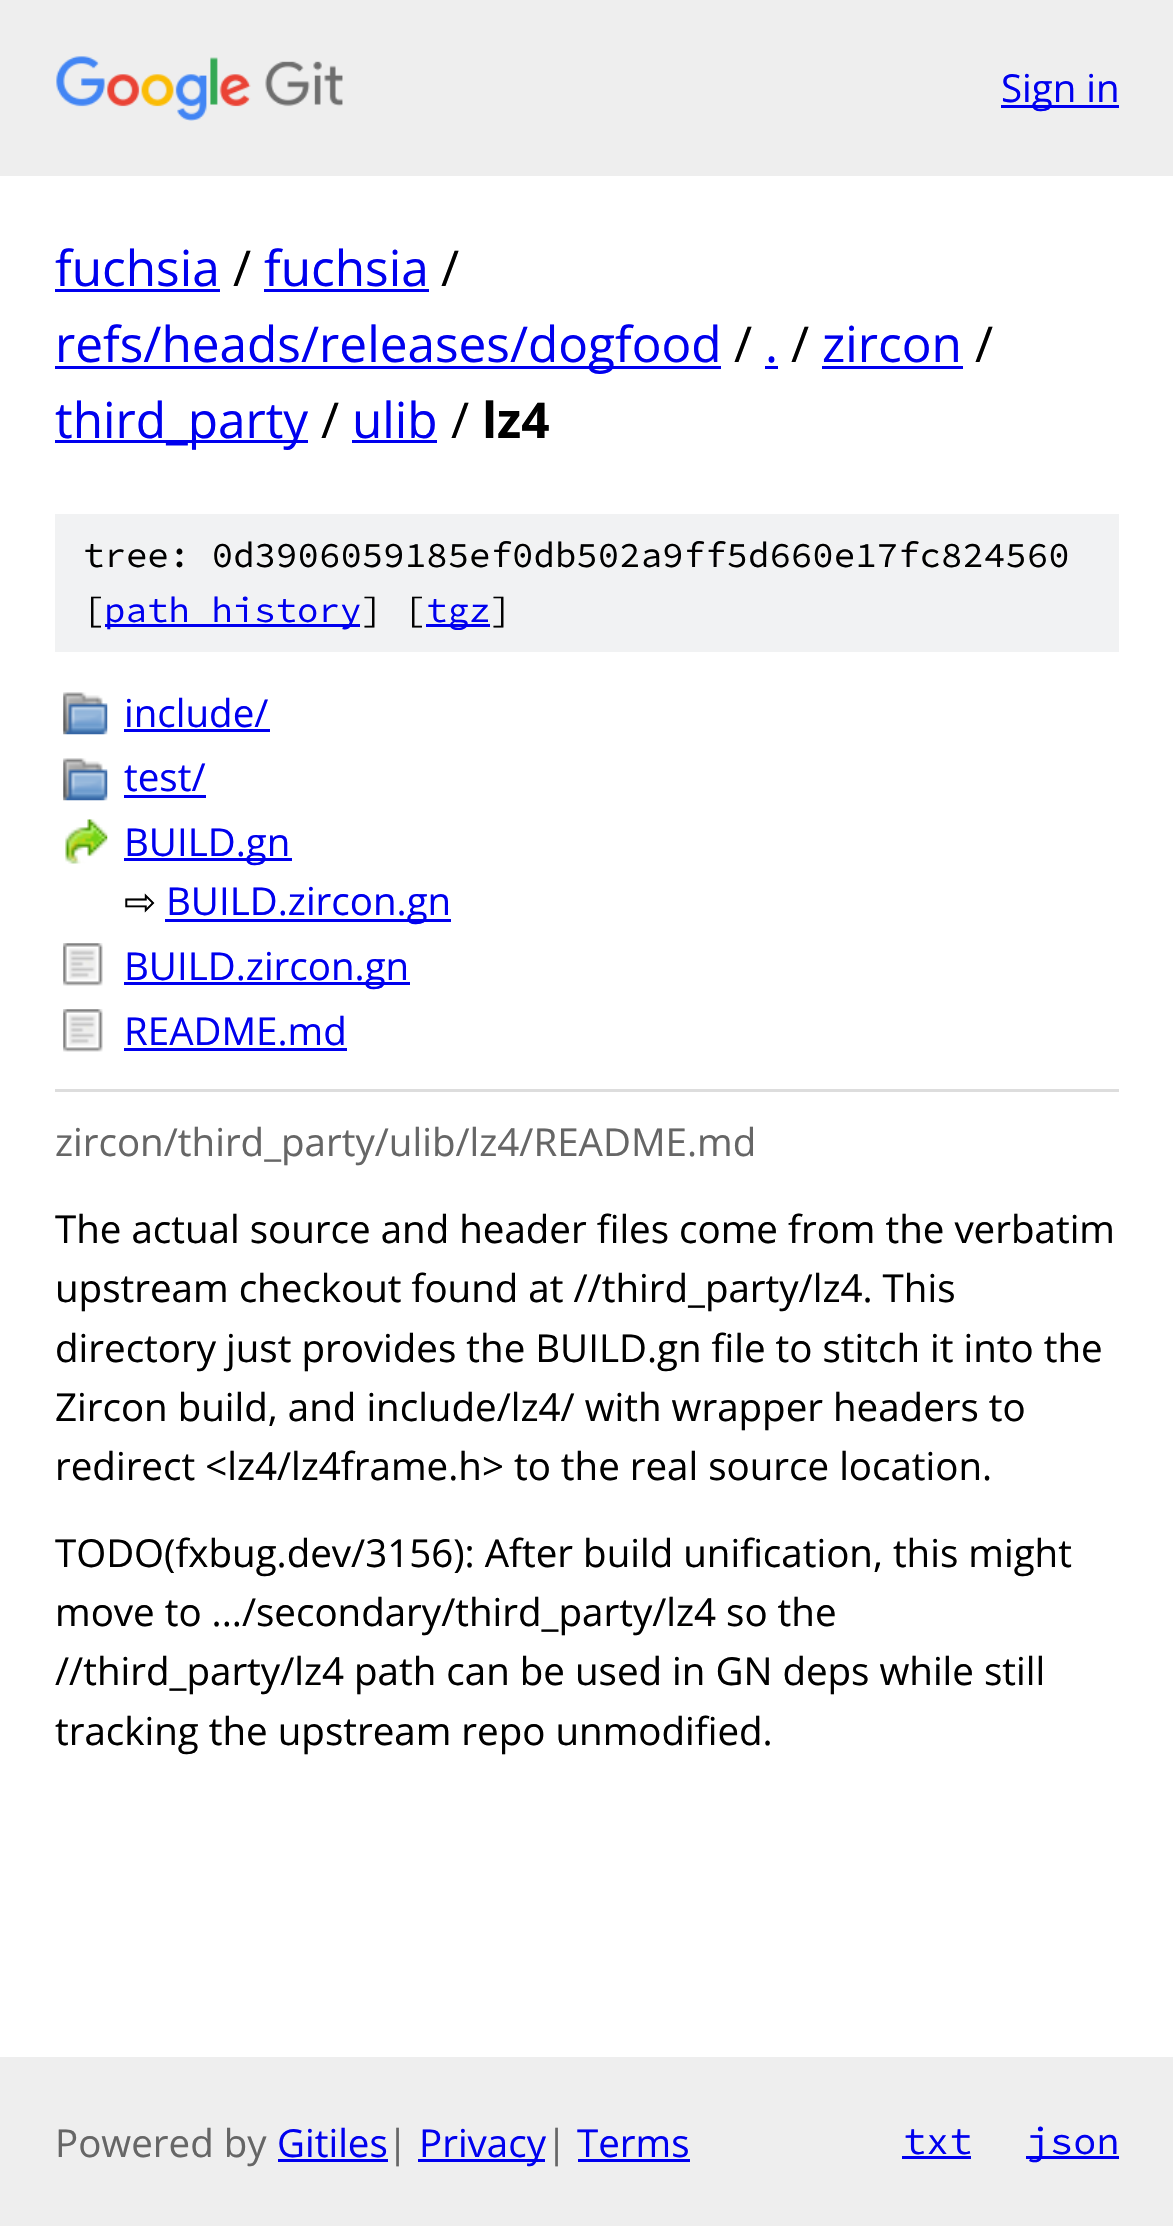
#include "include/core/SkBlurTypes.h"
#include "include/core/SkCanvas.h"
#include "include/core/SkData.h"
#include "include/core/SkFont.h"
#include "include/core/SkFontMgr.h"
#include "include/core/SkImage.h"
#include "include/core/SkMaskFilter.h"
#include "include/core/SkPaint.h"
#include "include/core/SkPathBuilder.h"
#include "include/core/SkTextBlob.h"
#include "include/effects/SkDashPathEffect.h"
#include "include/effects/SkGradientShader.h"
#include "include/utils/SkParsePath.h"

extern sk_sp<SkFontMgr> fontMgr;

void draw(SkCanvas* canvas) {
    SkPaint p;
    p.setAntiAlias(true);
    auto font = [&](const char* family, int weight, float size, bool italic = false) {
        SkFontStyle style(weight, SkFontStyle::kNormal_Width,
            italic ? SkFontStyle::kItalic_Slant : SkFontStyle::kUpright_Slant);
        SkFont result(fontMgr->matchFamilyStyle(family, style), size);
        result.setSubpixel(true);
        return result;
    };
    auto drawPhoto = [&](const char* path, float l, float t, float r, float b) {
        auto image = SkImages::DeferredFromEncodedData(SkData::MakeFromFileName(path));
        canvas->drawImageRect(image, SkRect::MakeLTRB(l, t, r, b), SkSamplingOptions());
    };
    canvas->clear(0xFFFFFFFF);
    p.setColor(0xFFEEEEEE);
    canvas->drawRect(SkRect::MakeLTRB(0, 0, 1173, 176), p);
    drawPhoto("media/1.png", 56, 56, 343, 121);
    p.setColor(0xFF0000EE);
    canvas->drawRect(SkRect::MakeLTRB(1001, 105, 1119, 108), p);
    auto font1 = font("Open Sans", 400, 38.5f);
    canvas->drawString("Sign in", 1001, 102, font1, p);
    auto font2 = font("Open Sans", 400, 49.5f);
    canvas->drawString("fuchsia", 55, 286, font2, p);
    canvas->drawRect(SkRect::MakeLTRB(55, 289, 220, 292), p);
    p.setColor(0xFF000000);
    canvas->drawString("/", 233, 286, font2, p);
    p.setColor(0xFF0000EE);
    canvas->drawString("fuchsia", 264, 286, font2, p);
    canvas->drawRect(SkRect::MakeLTRB(264, 289, 429, 292), p);
    p.setColor(0xFF000000);
    canvas->drawString("/", 441, 286, font2, p);
    p.setColor(0xFF0000EE);
    canvas->drawRect(SkRect::MakeLTRB(55, 366, 721, 369), p);
    canvas->drawString("refs/heads/releases/dogfood", 55, 362, font2, p);
    p.setColor(0xFF000000);
    canvas->drawString("/", 734, 362, font2, p);
    p.setColor(0xFF0000EE);
    canvas->drawString(".", 765, 362, font2, p);
    canvas->drawRect(SkRect::MakeLTRB(765, 366, 778, 369), p);
    p.setColor(0xFF000000);
    canvas->drawString("/", 791, 362, font2, p);
    p.setColor(0xFF0000EE);
    canvas->drawString("zircon", 822, 362, font2, p);
    canvas->drawRect(SkRect::MakeLTRB(822, 366, 963, 369), p);
    p.setColor(0xFF000000);
    canvas->drawString("/", 975, 362, font2, p);
    p.setColor(0xFF0000EE);
    canvas->drawRect(SkRect::MakeLTRB(55, 440, 308, 443), p);
    canvas->drawString("third_party", 55, 438, font2, p);
    p.setColor(0xFF000000);
    canvas->drawString("/", 321, 438, font2, p);
    p.setColor(0xFF0000EE);
    canvas->drawString("ulib", 352, 438, font2, p);
    canvas->drawRect(SkRect::MakeLTRB(352, 440, 437, 443), p);
    p.setColor(0xFF000000);
    canvas->drawString("/", 451, 438, font2, p);
    auto font3 = font("Open Sans", 700, 49.5f);
    canvas->drawString("lz4", 482, 438, font3, p);
    p.setColor(0xFFF1F2F3);
    canvas->drawRect(SkRect::MakeLTRB(55, 514, 1119, 652), p);
    auto font4 = font("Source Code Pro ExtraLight", 200, 35.75f);
    p.setColor(0xFF000000);
    canvas->drawString("tree: 0d3906059185ef0db502a9ff5d660e17fc824560", 83, 567, font4, p);
    canvas->drawString("[", 83, 622, font4, p);
    p.setColor(0xFF0000EE);
    canvas->drawRect(SkRect::MakeLTRB(105, 624, 360, 627), p);
    canvas->drawString("path history", 104, 622, font4, p);
    p.setColor(0xFF000000);
    canvas->drawString("] [", 361, 622, font4, p);
    p.setColor(0xFF0000EE);
    canvas->drawRect(SkRect::MakeLTRB(426, 624, 490, 627), p);
    canvas->drawString("tgz", 426, 622, font4, p);
    p.setColor(0xFF000000);
    canvas->drawString("]", 490, 622, font4, p);
    drawPhoto("media/2.png", 63, 692, 108, 735);
    p.setColor(0xFF0000EE);
    canvas->drawString("include/", 124, 727, font1, p);
    canvas->drawRect(SkRect::MakeLTRB(124, 729, 270, 732), p);
    drawPhoto("media/2.png", 63, 758, 108, 801);
    canvas->drawString("test/", 124, 791, font1, p);
    canvas->drawRect(SkRect::MakeLTRB(124, 795, 206, 798), p);
    drawPhoto("media/3.png", 65, 819, 108, 864);
    canvas->drawRect(SkRect::MakeLTRB(124, 858, 292, 861), p);
    canvas->drawString("BUILD.gn", 124, 856, font1, p);
    auto font5 = font("DejaVu Sans", 400, 38.5f);
    p.setColor(0xFF000000);
    canvas->drawString("⇨", 124, 915, font5, p);
    p.setColor(0xFF0000EE);
    canvas->drawRect(SkRect::MakeLTRB(165, 919, 451, 922), p);
    canvas->drawString("BUILD.zircon.gn", 166, 915, font1, p);
    drawPhoto("media/4.png", 63, 943, 103, 986);
    canvas->drawRect(SkRect::MakeLTRB(124, 982, 410, 985), p);
    canvas->drawString("BUILD.zircon.gn", 124, 980, font1, p);
    drawPhoto("media/4.png", 63, 1009, 103, 1052);
    canvas->drawString("README.md", 124, 1045, font1, p);
    canvas->drawRect(SkRect::MakeLTRB(124, 1048, 347, 1051), p);
    p.setColor(0xFFDDDDDD);
    canvas->drawRect(SkRect::MakeLTRB(55, 1089, 1119, 1092), p);
    p.setColor(0xFF666666);
    canvas->drawString("zircon/third_party/ulib/lz4/README.md", 55, 1156, font1, p);
    p.setColor(0xFF000000);
    {
        const struct { const char* s; float x, y; } items[] = {
            {"The actual source and header files come from the verbatim", 55, 1243},
            {"upstream checkout found at //third_party/lz4. This", 55, 1302},
            {"directory just provides the BUILD.gn file to stitch it into the", 55, 1362},
            {"Zircon build, and include/lz4/ with wrapper headers to", 55, 1421},
            {"redirect <lz4/lz4frame.h> to the real source location.", 55, 1480},
            {"TODO(fxbug.dev/3156): After build unification, this might", 55, 1567},
            {"move to .../secondary/third_party/lz4 so the", 55, 1626},
            {"//third_party/lz4 path can be used in GN deps while still", 55, 1685},
            {"tracking the upstream repo unmodified.", 55, 1745},
        };
        for (auto [s, x, y] : items) {
            canvas->drawString(s, x, y, font1, p);
        }
    }
    p.setColor(0xFFEEEEEE);
    canvas->drawRect(SkRect::MakeLTRB(0, 2057, 1173, 2226), p);
    p.setColor(0xFF666666);
    canvas->drawString("Powered by", 55, 2157, font1, p);
    p.setColor(0xFF0000EE);
    canvas->drawString("Gitiles", 277, 2157, font1, p);
    canvas->drawRect(SkRect::MakeLTRB(278, 2159, 388, 2162), p);
    p.setColor(0xFF666666);
    canvas->drawString("|", 387, 2157, font1, p);
    p.setColor(0xFF0000EE);
    canvas->drawRect(SkRect::MakeLTRB(418, 2159, 545, 2162), p);
    canvas->drawString("Privacy", 419, 2157, font1, p);
    p.setColor(0xFF666666);
    canvas->drawString("|", 546, 2157, font1, p);
    p.setColor(0xFF0000EE);
    canvas->drawString("Terms", 577, 2157, font1, p);
    canvas->drawRect(SkRect::MakeLTRB(578, 2159, 690, 2162), p);
    auto font6 = font("Source Code Pro ExtraLight", 200, 38.5f);
    canvas->drawString("txt", 903, 2154, font6, p);
    canvas->drawRect(SkRect::MakeLTRB(902, 2156, 971, 2159), p);
    canvas->drawRect(SkRect::MakeLTRB(1026, 2156, 1119, 2159), p);
    canvas->drawString("json", 1027, 2154, font6, p);
}
